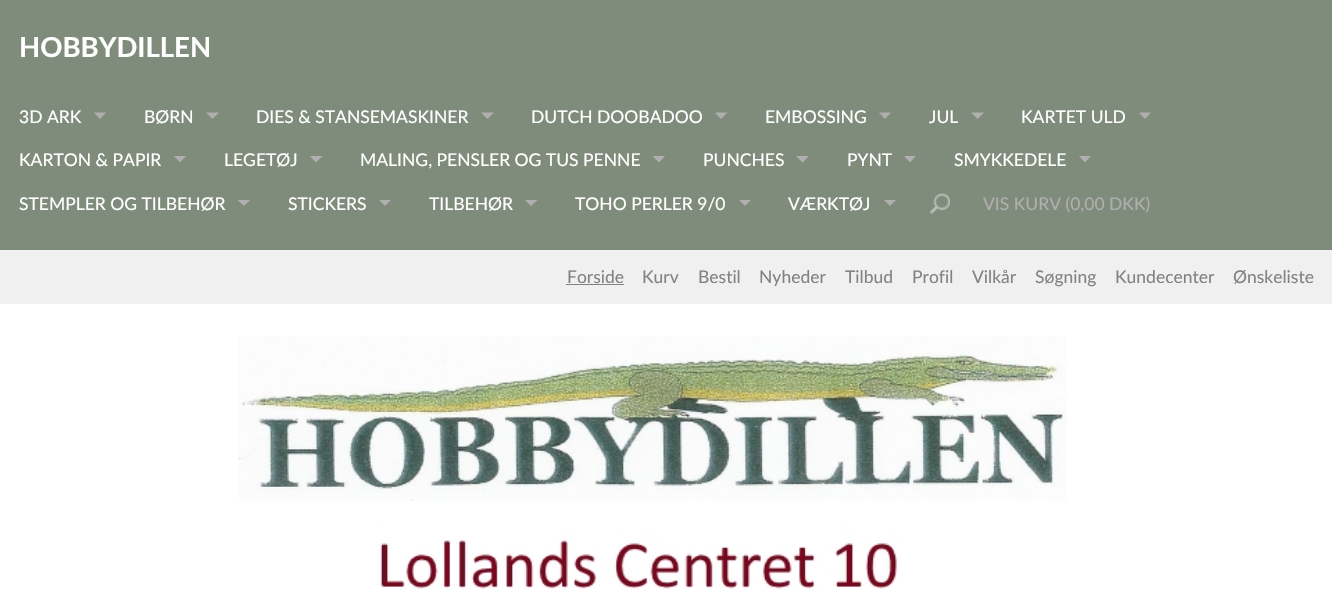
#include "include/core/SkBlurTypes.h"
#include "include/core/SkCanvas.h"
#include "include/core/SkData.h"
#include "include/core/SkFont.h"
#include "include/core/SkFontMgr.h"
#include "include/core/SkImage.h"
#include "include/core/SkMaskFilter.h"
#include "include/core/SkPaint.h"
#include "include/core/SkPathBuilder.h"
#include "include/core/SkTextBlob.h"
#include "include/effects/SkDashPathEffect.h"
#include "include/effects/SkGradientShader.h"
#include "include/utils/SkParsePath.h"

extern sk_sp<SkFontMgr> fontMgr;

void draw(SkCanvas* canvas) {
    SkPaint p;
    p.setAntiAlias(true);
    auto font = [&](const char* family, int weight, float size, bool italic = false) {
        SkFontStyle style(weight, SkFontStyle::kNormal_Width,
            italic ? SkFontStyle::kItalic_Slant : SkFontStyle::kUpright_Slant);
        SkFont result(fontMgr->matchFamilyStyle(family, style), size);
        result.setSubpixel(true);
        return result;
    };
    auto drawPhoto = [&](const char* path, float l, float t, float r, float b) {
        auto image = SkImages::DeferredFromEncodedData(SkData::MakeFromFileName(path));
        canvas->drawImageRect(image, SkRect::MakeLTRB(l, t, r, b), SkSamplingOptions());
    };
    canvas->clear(0xFFFFFFFF);
    p.setColor(0xFF7F8C7B);
    canvas->drawRect(SkRect::MakeLTRB(0, 0, 1332, 250), p);
    auto font1 = font("Lato", 700, 27.5f);
    p.setColor(0xFFFFFFFF);
    canvas->drawString("HOBBYDILLEN", 19, 57, font1, p);
    auto font2 = font("Lato", 400, 17.5f);
    canvas->drawString("3D ARK", 19, 123, font2, p);
    p.setColor(0xFFAFAFAF);
    canvas->drawPath(SkPathBuilder().moveTo(94, 112.5f).lineTo(106, 112.5f).lineTo(100, 119).close().detach(), p);
    p.setColor(0xFFFFFFFF);
    canvas->drawString("BØRN", 144, 123, font2, p);
    p.setColor(0xFFAFAFAF);
    canvas->drawPath(SkPathBuilder().moveTo(206, 112.5f).lineTo(219, 112.5f).lineTo(212.5f, 119).close().detach(), p);
    p.setColor(0xFFFFFFFF);
    canvas->drawString("DIES & STANSEMASKINER", 256, 123, font2, p);
    p.setColor(0xFFAFAFAF);
    canvas->drawPath(SkPathBuilder().moveTo(481, 112.5f).lineTo(494, 112.5f).lineTo(487.5f, 119).close().detach(), p);
    p.setColor(0xFFFFFFFF);
    canvas->drawString("DUTCH DOOBADOO", 531, 123, font2, p);
    p.setColor(0xFFAFAFAF);
    canvas->drawPath(SkPathBuilder().moveTo(715, 112.5f).lineTo(727.5f, 112.5f).lineTo(721, 119).close().detach(), p);
    p.setColor(0xFFFFFFFF);
    canvas->drawString("EMBOSSING", 765, 123, font2, p);
    p.setColor(0xFFAFAFAF);
    canvas->drawPath(SkPathBuilder().moveTo(879, 112.5f).lineTo(891, 112.5f).lineTo(885, 119).close().detach(), p);
    p.setColor(0xFFFFFFFF);
    canvas->drawString("JUL", 929, 123, font2, p);
    p.setColor(0xFFAFAFAF);
    canvas->drawPath(SkPathBuilder().moveTo(971, 112.5f).lineTo(984, 112.5f).lineTo(977.5f, 119).close().detach(), p);
    p.setColor(0xFFFFFFFF);
    canvas->drawString("KARTET ULD", 1021, 123, font2, p);
    p.setColor(0xFFAFAFAF);
    canvas->drawPath(SkPathBuilder().moveTo(1139, 112.5f).lineTo(1151, 112.5f).lineTo(1145, 119).close().detach(), p);
    p.setColor(0xFFFFFFFF);
    canvas->drawString("KARTON & PAPIR", 19, 166, font2, p);
    p.setColor(0xFFAFAFAF);
    canvas->drawPath(SkPathBuilder().moveTo(174, 156).lineTo(186, 156).lineTo(180, 162.5f).close().detach(), p);
    p.setColor(0xFFFFFFFF);
    canvas->drawString("LEGETØJ", 224, 166, font2, p);
    p.setColor(0xFFAFAFAF);
    canvas->drawPath(SkPathBuilder().moveTo(310, 156).lineTo(322.5f, 156).lineTo(316, 162.5f).close().detach(), p);
    p.setColor(0xFFFFFFFF);
    canvas->drawString("MALING, PENSLER OG TUS PENNE", 360, 166, font2, p);
    p.setColor(0xFFAFAFAF);
    canvas->drawPath(SkPathBuilder().moveTo(652.5f, 156).lineTo(665, 156).lineTo(659, 162.5f).close().detach(), p);
    p.setColor(0xFFFFFFFF);
    canvas->drawString("PUNCHES", 703, 166, font2, p);
    p.setColor(0xFFAFAFAF);
    canvas->drawPath(SkPathBuilder().moveTo(796, 156).lineTo(809, 156).lineTo(802.5f, 162.5f).close().detach(), p);
    p.setColor(0xFFFFFFFF);
    canvas->drawString("PYNT", 847, 166, font2, p);
    p.setColor(0xFFAFAFAF);
    canvas->drawPath(SkPathBuilder().moveTo(904, 156).lineTo(916, 156).lineTo(910, 162.5f).close().detach(), p);
    p.setColor(0xFFFFFFFF);
    canvas->drawString("SMYKKEDELE", 954, 166, font2, p);
    p.setColor(0xFFAFAFAF);
    canvas->drawPath(SkPathBuilder().moveTo(1079, 156).lineTo(1091, 156).lineTo(1085, 162.5f).close().detach(), p);
    p.setColor(0xFFFFFFFF);
    canvas->drawString("STEMPLER OG TILBEHØR", 19, 210, font2, p);
    p.setColor(0xFFAFAFAF);
    canvas->drawPath(SkPathBuilder().moveTo(237.5f, 200).lineTo(250, 200).lineTo(244, 206).close().detach(), p);
    p.setColor(0xFFFFFFFF);
    canvas->drawString("STICKERS", 288, 210, font2, p);
    p.setColor(0xFFAFAFAF);
    canvas->drawPath(SkPathBuilder().moveTo(379, 200).lineTo(391, 200).lineTo(385, 206).close().detach(), p);
    p.setColor(0xFFFFFFFF);
    canvas->drawString("TILBEHØR", 429, 210, font2, p);
    p.setColor(0xFFAFAFAF);
    canvas->drawPath(SkPathBuilder().moveTo(525, 200).lineTo(537.5f, 200).lineTo(531, 206).close().detach(), p);
    p.setColor(0xFFFFFFFF);
    canvas->drawString("TOHO PERLER 9/0", 575, 210, font2, p);
    p.setColor(0xFFAFAFAF);
    canvas->drawPath(SkPathBuilder().moveTo(739, 200).lineTo(751, 200).lineTo(745, 206).close().detach(), p);
    p.setColor(0xFFFFFFFF);
    canvas->drawString("VÆRKTØJ", 788, 210, font2, p);
    p.setColor(0xFFAFAFAF);
    canvas->drawPath(SkPathBuilder().moveTo(884, 200).lineTo(896, 200).lineTo(890, 206).close().detach(), p);
    drawPhoto("media/1.png", 930, 193, 950, 214);
    canvas->drawString("VIS KURV (0,00 DKK)", 983, 210, font2, p);
    p.setColor(0xFFF0F0F0);
    canvas->drawRect(SkRect::MakeLTRB(0, 250, 1332, 304), p);
    p.setColor(0xFF828282);
    canvas->drawString("Forside", 567, 283, font2, p);
    canvas->drawRect(SkRect::MakeLTRB(566, 284, 624, 285), p);
    {
        const struct { const char* s; float x, y; } items[] = {
            {"Kurv", 642, 283},
            {"Bestil", 698, 283},
            {"Nyheder", 759, 283},
            {"Tilbud", 845, 283},
            {"Profil", 912, 283},
            {"Vilkår", 972, 283},
            {"Søgning", 1035, 283},
            {"Kundecenter", 1115, 283},
            {"Ønskeliste", 1233, 283},
        };
        for (auto [s, x, y] : items) {
            canvas->drawString(s, x, y, font2, p);
        }
    }
    drawPhoto("media/2.png", 238, 336, 1067, 610);
}
